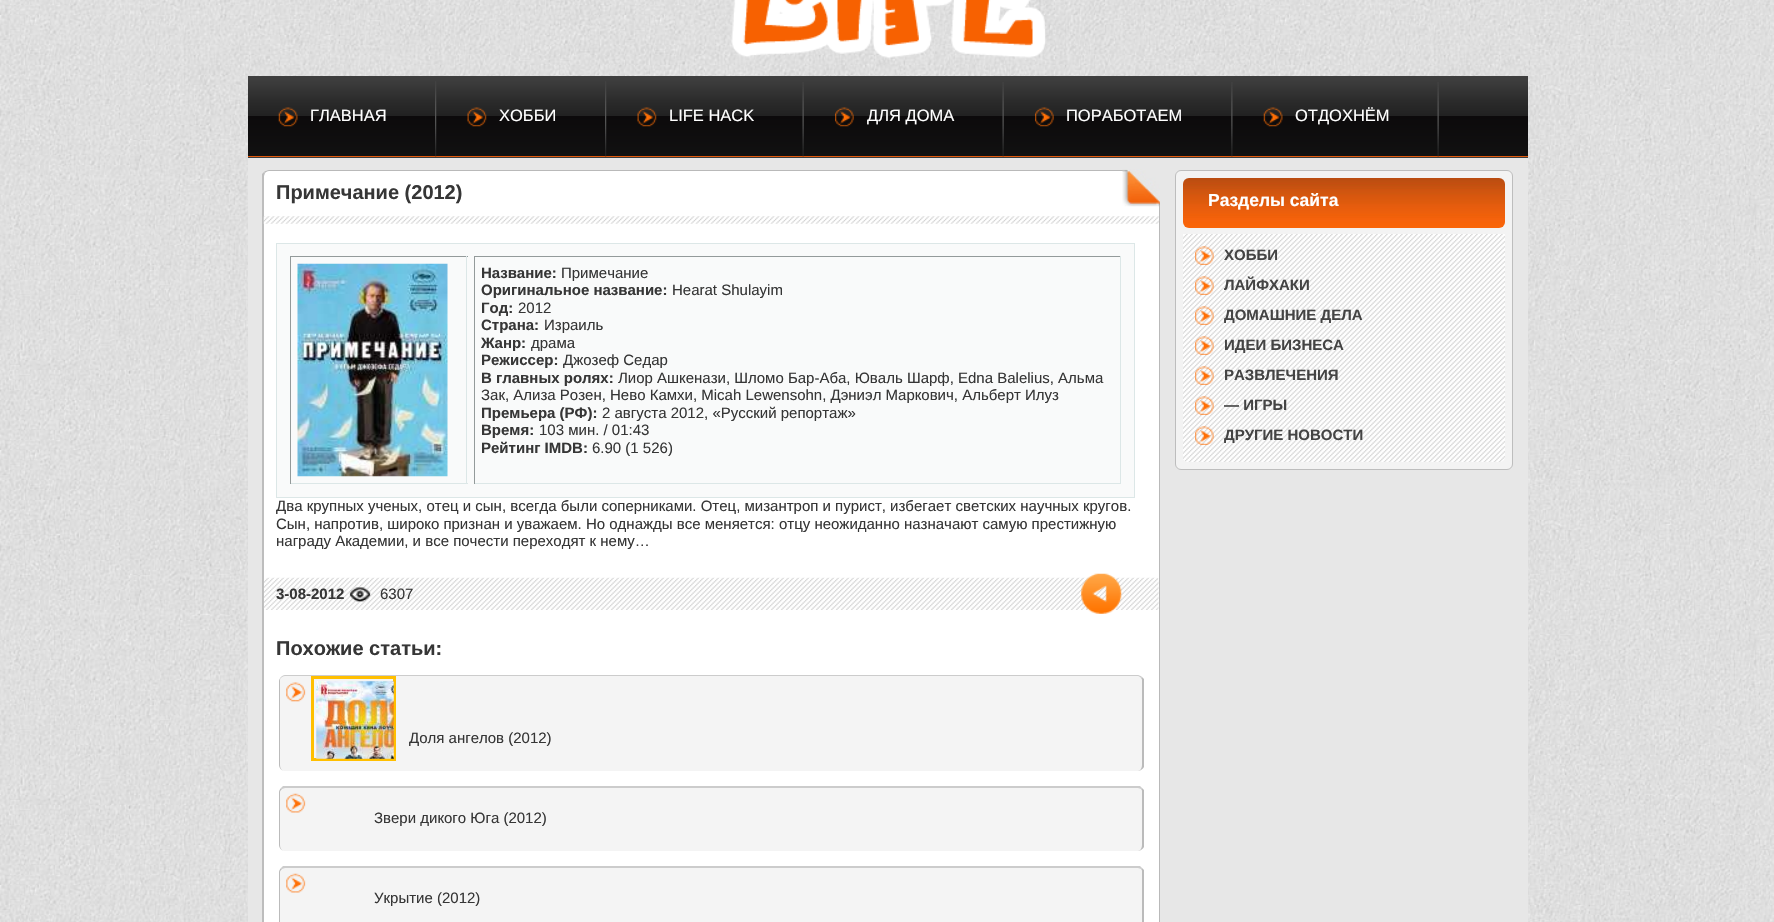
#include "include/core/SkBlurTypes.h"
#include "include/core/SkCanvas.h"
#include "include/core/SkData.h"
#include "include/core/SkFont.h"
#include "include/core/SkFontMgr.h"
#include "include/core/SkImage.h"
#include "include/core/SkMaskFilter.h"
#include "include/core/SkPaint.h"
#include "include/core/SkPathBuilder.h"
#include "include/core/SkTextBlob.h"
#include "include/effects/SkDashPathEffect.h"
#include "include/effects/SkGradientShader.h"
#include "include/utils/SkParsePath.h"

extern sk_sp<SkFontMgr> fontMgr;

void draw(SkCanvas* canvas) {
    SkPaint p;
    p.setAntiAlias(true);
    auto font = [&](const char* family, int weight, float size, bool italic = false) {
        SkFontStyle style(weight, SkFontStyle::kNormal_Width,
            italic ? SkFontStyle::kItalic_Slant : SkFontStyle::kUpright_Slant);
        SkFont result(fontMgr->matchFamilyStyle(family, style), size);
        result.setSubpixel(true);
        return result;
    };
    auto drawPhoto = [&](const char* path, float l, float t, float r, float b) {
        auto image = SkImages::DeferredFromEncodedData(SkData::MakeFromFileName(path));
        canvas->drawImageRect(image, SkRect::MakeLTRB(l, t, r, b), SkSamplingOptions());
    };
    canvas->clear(0xFFFFFFFF);
    drawPhoto("media/1.png", 0, 0, 1774, 922);
    drawPhoto("media/2.png", 731, 0, 1046, 58);
    {
        const SkColor colors[] = {0xFF3F3F3F, 0xFF3D3D3D, 0xFF2B2B2B, 0xFF222222, 0xFF212121, 0xFF0C0A0B, 0xFF111111};
        const float stops[] = {0, 0.06f, 0.31f, 0.49f, 0.5f, 0.5f, 1};
        const SkPoint ends[] = {{888, 76}, {888, 156}};
        p.setShader(SkGradientShader::MakeLinear(ends, colors, stops, 7, SkTileMode::kClamp));
        p.setAlpha(255);
    }
    canvas->drawRect(SkRect::MakeLTRB(248, 76, 1528, 156), p);
    {
        const SkColor colors[] = {0xFF3F3F3F, 0xFF3D3D3D, 0xFF2B2B2B, 0xFF222222, 0xFF212121, 0xFF0C0A0B, 0xFF111111};
        const float stops[] = {0, 0.06f, 0.31f, 0.49f, 0.5f, 0.5f, 1};
        const SkPoint ends[] = {{888, 156}, {888, 236}};
        p.setShader(SkGradientShader::MakeLinear(ends, colors, stops, 7, SkTileMode::kClamp));
        p.setAlpha(255);
    }
    canvas->drawRect(SkRect::MakeLTRB(248, 157, 1528, 158), p);
    p.setShader(nullptr);
    p.setColor(0xFFE25A0C);
    canvas->drawRect(SkRect::MakeLTRB(248, 156, 1528, 157), p);
    drawPhoto("media/3.png", 435, 81, 437, 157);
    drawPhoto("media/4.png", 278, 107, 298, 127);
    auto font1 = font("Liberation Sans", 400, 16.5f);
    p.setColor(0xFFFFFFFF);
    canvas->drawString("ГЛАВНАЯ", 310, 121, font1, p);
    drawPhoto("media/3.png", 605, 81, 607, 157);
    drawPhoto("media/5.png", 467, 107, 487, 127);
    canvas->drawString("ХОББИ", 499, 121, font1, p);
    drawPhoto("media/6.png", 802, 82, 804, 157);
    drawPhoto("media/5.png", 637, 107, 657, 127);
    canvas->drawString("LIFE HACK", 669, 121, font1, p);
    drawPhoto("media/6.png", 1002, 82, 1004, 157);
    drawPhoto("media/7.png", 835, 107, 854, 127);
    canvas->drawString("ДЛЯ ДОМА", 867, 121, font1, p);
    drawPhoto("media/8.png", 1231, 82, 1233, 157);
    drawPhoto("media/9.png", 1035, 107, 1054, 127);
    canvas->drawString("ПОРАБОТАЕМ", 1066, 121, font1, p);
    drawPhoto("media/6.png", 1437, 82, 1439, 157);
    drawPhoto("media/10.png", 1263, 107, 1283, 127);
    canvas->drawString("ОТДОХНЁМ", 1295, 121, font1, p);
    p.setColor(0xFFE7E7E7);
    canvas->drawRect(SkRect::MakeLTRB(248, 158, 1528, 922), p);
    p.setColor(0xFFFFFFFF);
    canvas->drawPath(SkPathBuilder().moveTo(269, 170).lineTo(1160, 170).lineTo(1160, 922).cubicTo(1160, 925.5f, 1157.5f, 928, 1154, 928).lineTo(269, 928).cubicTo(265.5f, 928, 263, 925.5f, 263, 922).lineTo(263, 176).cubicTo(263, 172.5f, 265.5f, 170, 269, 170).close().detach(), p);
    p.setColor(0xFFB9B9B9);
    canvas->drawPath(SkPathBuilder().moveTo(269, 170).cubicTo(267, 170, 265, 171, 264, 172).lineTo(265, 173).cubicTo(266, 172, 267, 171, 269, 171).lineTo(1159, 171).lineTo(1160, 170).close().detach(), p);
    canvas->drawPath(SkPathBuilder().moveTo(1160, 170).lineTo(1159, 171).lineTo(1159, 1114).cubicTo(1159, 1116, 1158, 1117, 1158, 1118).cubicTo(1159, 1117, 1160, 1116, 1160, 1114).close().detach(), p);
    p.setColor(0xFFBDBDBD);
    canvas->drawPath(SkPathBuilder().moveTo(262, 174).lineTo(264, 172).lineTo(265, 173).lineTo(264, 176).lineTo(264, 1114).lineTo(265, 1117).lineTo(264, 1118).lineTo(262, 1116).close().detach(), p);
    auto font2 = font("Liberation Sans", 700, 20);
    p.setColor(0xFF363636);
    canvas->drawString("Примечание (2012)", 276, 199, font2, p);
    drawPhoto("media/11.png", 1122, 169, 1160, 207);
    drawPhoto("media/12.png", 263, 216, 1159, 224);
    p.setColor(0xFFF9FAFA);
    canvas->drawRect(SkRect::MakeLTRB(276.5f, 243.5f, 1134.5f, 497.5f), p);
    p.setStyle(SkPaint::kStroke_Style);
    p.setStrokeWidth(1);
    p.setColor(0xFFDCE7E7);
    canvas->drawRect(SkRect::MakeLTRB(276.5f, 243.5f, 1134.5f, 497.5f), p);
    p.setStyle(SkPaint::kFill_Style);
    {
        const struct { float l, t, r, b; SkColor color; } items[] = {
            {290, 256, 468, 257, 0xFF939A9A},
            {466, 256, 467, 484, 0xFFDCE7E7},
            {290, 483, 468, 484, 0xFFDCE7E7},
            {290, 256, 291, 484, 0xFF939A9A},
        };
        for (auto [l, t, r, b, color] : items) {
            p.setColor(color);
            canvas->drawRect(SkRect::MakeLTRB(l, t, r, b), p);
        }
    }
    drawPhoto("media/13.png", 297, 263, 448, 477);
    {
        const struct { float l, t, r, b; SkColor color; } items[] = {
            {474, 256, 1121, 257, 0xFF939A9A},
            {1120, 256, 1121, 484, 0xFFDCE7E7},
            {474, 483, 1121, 484, 0xFFDCE7E7},
            {474, 256, 475, 484, 0xFF939A9A},
        };
        for (auto [l, t, r, b, color] : items) {
            p.setColor(color);
            canvas->drawRect(SkRect::MakeLTRB(l, t, r, b), p);
        }
    }
    auto font3 = font("Liberation Sans", 700, 15);
    p.setColor(0xFF363636);
    canvas->drawString("Название:", 481, 278, font3, p);
    auto font4 = font("Liberation Sans", 400, 15);
    canvas->drawString("Примечание", 561, 278, font4, p);
    canvas->drawString("Оригинальное название:", 481, 295, font3, p);
    canvas->drawString("Hearat Shulayim", 672, 295, font4, p);
    canvas->drawString("Год:", 481, 313, font3, p);
    canvas->drawString("2012", 518, 313, font4, p);
    canvas->drawString("Страна:", 481, 330, font3, p);
    canvas->drawString("Израиль", 544, 330, font4, p);
    canvas->drawString("Жанр:", 481, 348, font3, p);
    canvas->drawString("драма", 531, 348, font4, p);
    canvas->drawString("Режиссер:", 481, 365, font3, p);
    canvas->drawString("Джозеф Седар", 563, 365, font4, p);
    canvas->drawString("В главных ролях:", 481, 383, font3, p);
    canvas->drawString("Лиор Ашкенази, Шломо Бар-Аба, Юваль Шарф, Edna Balelius, Альма", 618, 383, font4, p);
    canvas->drawString("Зак, Ализа Розен, Нево Камхи, Micah Lewensohn, Дэниэл Маркович, Альберт Илуз", 481, 400, font4, p);
    canvas->drawString("Премьера (РФ):", 481, 418, font3, p);
    canvas->drawString("2 августа 2012, «Русский репортаж»", 602, 418, font4, p);
    canvas->drawString("Время:", 481, 435, font3, p);
    canvas->drawString("103 мин. / 01:43", 539, 435, font4, p);
    canvas->drawString("Рейтинг IMDB:", 481, 453, font3, p);
    {
        const struct { const char* s; float x, y; } items[] = {
            {"6.90 (1 526)", 592, 453},
            {"Два крупных ученых, отец и сын, всегда были соперниками. Отец, мизантроп и пурист, избегает светских научных кругов.", 276, 511},
            {"Сын, напротив, широко признан и уважаем. Но однажды все меняется: отцу неожиданно назначают самую престижную", 276, 529},
            {"награду Академии, и все почести переходят к нему…", 276, 546},
        };
        for (auto [s, x, y] : items) {
            canvas->drawString(s, x, y, font4, p);
        }
    }
    drawPhoto("media/14.png", 263, 577, 1159, 610);
    canvas->drawString("3-08-2012", 276, 599, font3, p);
    drawPhoto("media/15.png", 349, 587, 371, 602);
    canvas->drawString("6307", 380, 599, font4, p);
    drawPhoto("media/16.png", 1081, 573, 1122, 614);
    canvas->drawString("Похожие статьи:", 276, 655, font2, p);
    p.setColor(0xFFF4F4F4);
    canvas->drawPath(SkPathBuilder().moveTo(285, 676).lineTo(1138, 676).cubicTo(1140, 676, 1142, 678, 1142, 681).lineTo(1142, 765).cubicTo(1142, 768, 1140, 771, 1138, 771).lineTo(285, 771).cubicTo(282, 771, 280, 768, 280, 765).lineTo(280, 681).cubicTo(280, 678, 282, 676, 285, 676).close().detach(), p);
    p.setColor(0xFFCCCCCC);
    canvas->drawPath(SkPathBuilder().moveTo(285, 675).lineTo(1138, 675).cubicTo(1139, 675, 1141, 676, 1142, 677).lineTo(1141, 678).cubicTo(1140, 677, 1139, 676, 1138, 676).lineTo(285, 676).cubicTo(283, 676, 282, 677, 281, 678).lineTo(281, 677).cubicTo(282, 676, 283, 675, 285, 675).close().detach(), p);
    p.setColor(0xFFBBBBBB);
    canvas->drawPath(SkPathBuilder().moveTo(1144, 679).lineTo(1144, 767).cubicTo(1143, 769, 1140, 771, 1138, 771).cubicTo(1140, 771, 1142, 768, 1142, 765).lineTo(1142, 681).cubicTo(1142, 680, 1142, 679, 1141, 678).lineTo(1142, 677).close().detach(), p);
    canvas->drawPath(SkPathBuilder().moveTo(281, 677).lineTo(281, 678).cubicTo(280, 678, 280, 680, 280, 681).lineTo(280, 765).cubicTo(280, 768, 282, 771, 285, 771).cubicTo(282, 771, 279, 768, 279, 765).lineTo(279, 681).cubicTo(279, 680, 280, 678, 281, 677).close().detach(), p);
    drawPhoto("media/17.png", 286, 682, 306, 702);
    p.setStyle(SkPaint::kStroke_Style);
    p.setStrokeWidth(3);
    p.setColor(0xFFFFBF00);
    canvas->drawRect(SkRect::MakeLTRB(312.5f, 677.5f, 394.5f, 759.5f), p);
    drawPhoto("media/18.png", 316, 681, 394, 759);
    p.setStyle(SkPaint::kFill_Style);
    p.setColor(0xFF363636);
    canvas->drawString("Доля ангелов (2012)", 409, 743, font4, p);
    p.setColor(0xFFF4F4F4);
    canvas->drawPath(SkPathBuilder().moveTo(285, 788).lineTo(1138, 788).cubicTo(1140, 788, 1142, 790, 1142, 792).lineTo(1142, 845).cubicTo(1142, 848, 1140, 851, 1138, 851).lineTo(285, 851).cubicTo(282, 851, 280, 848, 280, 845).lineTo(280, 792).cubicTo(280, 790, 282, 788, 285, 788).close().detach(), p);
    p.setColor(0xFFCCCCCC);
    canvas->drawPath(SkPathBuilder().moveTo(285, 788).lineTo(282, 789).lineTo(281, 788).lineTo(283, 786).lineTo(1140, 786).lineTo(1142, 788).lineTo(1141, 789).lineTo(1138, 788).close().detach(), p);
    p.setColor(0xFFBBBBBB);
    canvas->drawPath(SkPathBuilder().moveTo(1144, 790).lineTo(1144, 847).cubicTo(1143, 849, 1140, 851, 1138, 851).cubicTo(1140, 851, 1142, 848, 1142, 845).lineTo(1142, 792).cubicTo(1142, 791, 1142, 790, 1141, 789).lineTo(1142, 788).close().detach(), p);
    canvas->drawPath(SkPathBuilder().moveTo(282, 789).lineTo(281, 788).cubicTo(280, 789, 279, 791, 279, 792).lineTo(279, 845).cubicTo(279, 848, 282, 851, 285, 851).cubicTo(282, 851, 280, 848, 280, 845).lineTo(280, 792).cubicTo(280, 791, 281, 790, 282, 789).close().detach(), p);
    drawPhoto("media/19.png", 286, 793, 306, 813);
    p.setColor(0xFF363636);
    canvas->drawString("Звери дикого Юга (2012)", 374, 823, font4, p);
    p.setColor(0xFFF4F4F4);
    canvas->drawPath(SkPathBuilder().moveTo(285, 868).lineTo(1138, 868).cubicTo(1140, 868, 1142, 870, 1142, 872).lineTo(1142, 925).cubicTo(1142, 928, 1140, 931, 1138, 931).lineTo(285, 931).cubicTo(282, 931, 280, 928, 280, 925).lineTo(280, 872).cubicTo(280, 870, 282, 868, 285, 868).close().detach(), p);
    p.setColor(0xFFCCCCCC);
    canvas->drawPath(SkPathBuilder().moveTo(285, 868).lineTo(282, 869).lineTo(281, 868).lineTo(283, 866).lineTo(1140, 866).lineTo(1142, 868).lineTo(1141, 869).lineTo(1138, 868).close().detach(), p);
    p.setColor(0xFFBBBBBB);
    canvas->drawPath(SkPathBuilder().moveTo(1144, 870).lineTo(1144, 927).cubicTo(1143, 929, 1140, 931, 1138, 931).cubicTo(1140, 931, 1142, 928, 1142, 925).lineTo(1142, 872).cubicTo(1142, 871, 1142, 870, 1141, 869).lineTo(1142, 868).close().detach(), p);
    canvas->drawPath(SkPathBuilder().moveTo(282, 869).lineTo(281, 868).cubicTo(280, 869, 279, 871, 279, 872).lineTo(279, 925).cubicTo(279, 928, 282, 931, 285, 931).cubicTo(282, 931, 280, 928, 280, 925).lineTo(280, 872).cubicTo(280, 871, 281, 870, 282, 869).close().detach(), p);
    drawPhoto("media/19.png", 286, 873, 306, 893);
    p.setColor(0xFF363636);
    canvas->drawString("Укрытие (2012)", 374, 903, font4, p);
    p.setColor(0xFFF3F3F3);
    canvas->drawRoundRect(SkRect::MakeLTRB(1175.5f, 170.5f, 1512.5f, 469.5f), 5.5f, 5.5f, p);
    p.setStyle(SkPaint::kStroke_Style);
    p.setStrokeWidth(1);
    p.setColor(0xFFBDBDBD);
    canvas->drawRoundRect(SkRect::MakeLTRB(1175.5f, 170.5f, 1512.5f, 469.5f), 5.5f, 5.5f, p);
    p.setStyle(SkPaint::kFill_Style);
    {
        const SkColor colors[] = {0xFFBA4C11, 0xFFBB4D10, 0xFFBF4E12, 0xFFBF4F0F, 0xFFC44E11, 0xFFC3500F, 0xFFC74F10, 0xFFC35210, 0xFFC85011, 0xFFC85310, 0xFFC85310, 0xFFCD520E, 0xFFD05511, 0xFFD1570E, 0xFFD6560F, 0xFFDE5B0D, 0xFFE55C0E, 0xFFEE600C, 0xFFF06009, 0xFFEE600A, 0xFFF1610B, 0xFFF2600A, 0xFFF4620C, 0xFFF7630D, 0xFFF76309, 0xFFFA6509};
        const float stops[] = {0, 0.04f, 0.06f, 0.08f, 0.11f, 0.13f, 0.14f, 0.15f, 0.17f, 0.18f, 0.21f, 0.22f, 0.28f, 0.32f, 0.34f, 0.49f, 0.55f, 0.73f, 0.73f, 0.75f, 0.76f, 0.8f, 0.81f, 0.86f, 0.88f, 1};
        const SkPoint ends[] = {{1344, 178}, {1344, 228}};
        p.setShader(SkGradientShader::MakeLinear(ends, colors, stops, 26, SkTileMode::kClamp));
        p.setAlpha(255);
    }
    canvas->drawRoundRect(SkRect::MakeLTRB(1183, 178, 1505, 228), 6, 6, p);
    auto font5 = font("Liberation Sans", 700, 17.5f);
    p.setShader(nullptr);
    p.setColor(0xFFFFFFFF);
    canvas->drawString("Разделы сайта", 1208, 206, font5, p);
    drawPhoto("media/20.png", 1183, 234, 1505, 462);
    drawPhoto("media/21.png", 1195, 246, 1214, 265);
    p.setColor(0xFF444444);
    canvas->drawString("ХОББИ", 1224, 260, font3, p);
    drawPhoto("media/21.png", 1195, 276, 1214, 295);
    canvas->drawString("ЛАЙФХАКИ", 1224, 290, font3, p);
    drawPhoto("media/21.png", 1195, 306, 1214, 325);
    canvas->drawString("ДОМАШНИЕ ДЕЛА", 1224, 320, font3, p);
    drawPhoto("media/21.png", 1195, 336, 1214, 355);
    canvas->drawString("ИДЕИ БИЗНЕСА", 1224, 350, font3, p);
    drawPhoto("media/21.png", 1195, 366, 1214, 385);
    canvas->drawString("РАЗВЛЕЧЕНИЯ", 1224, 380, font3, p);
    drawPhoto("media/21.png", 1195, 396, 1214, 415);
    canvas->drawString("— ИГРЫ", 1224, 410, font3, p);
    drawPhoto("media/21.png", 1195, 426, 1214, 445);
    canvas->drawString("ДРУГИЕ НОВОСТИ", 1224, 440, font3, p);
}
